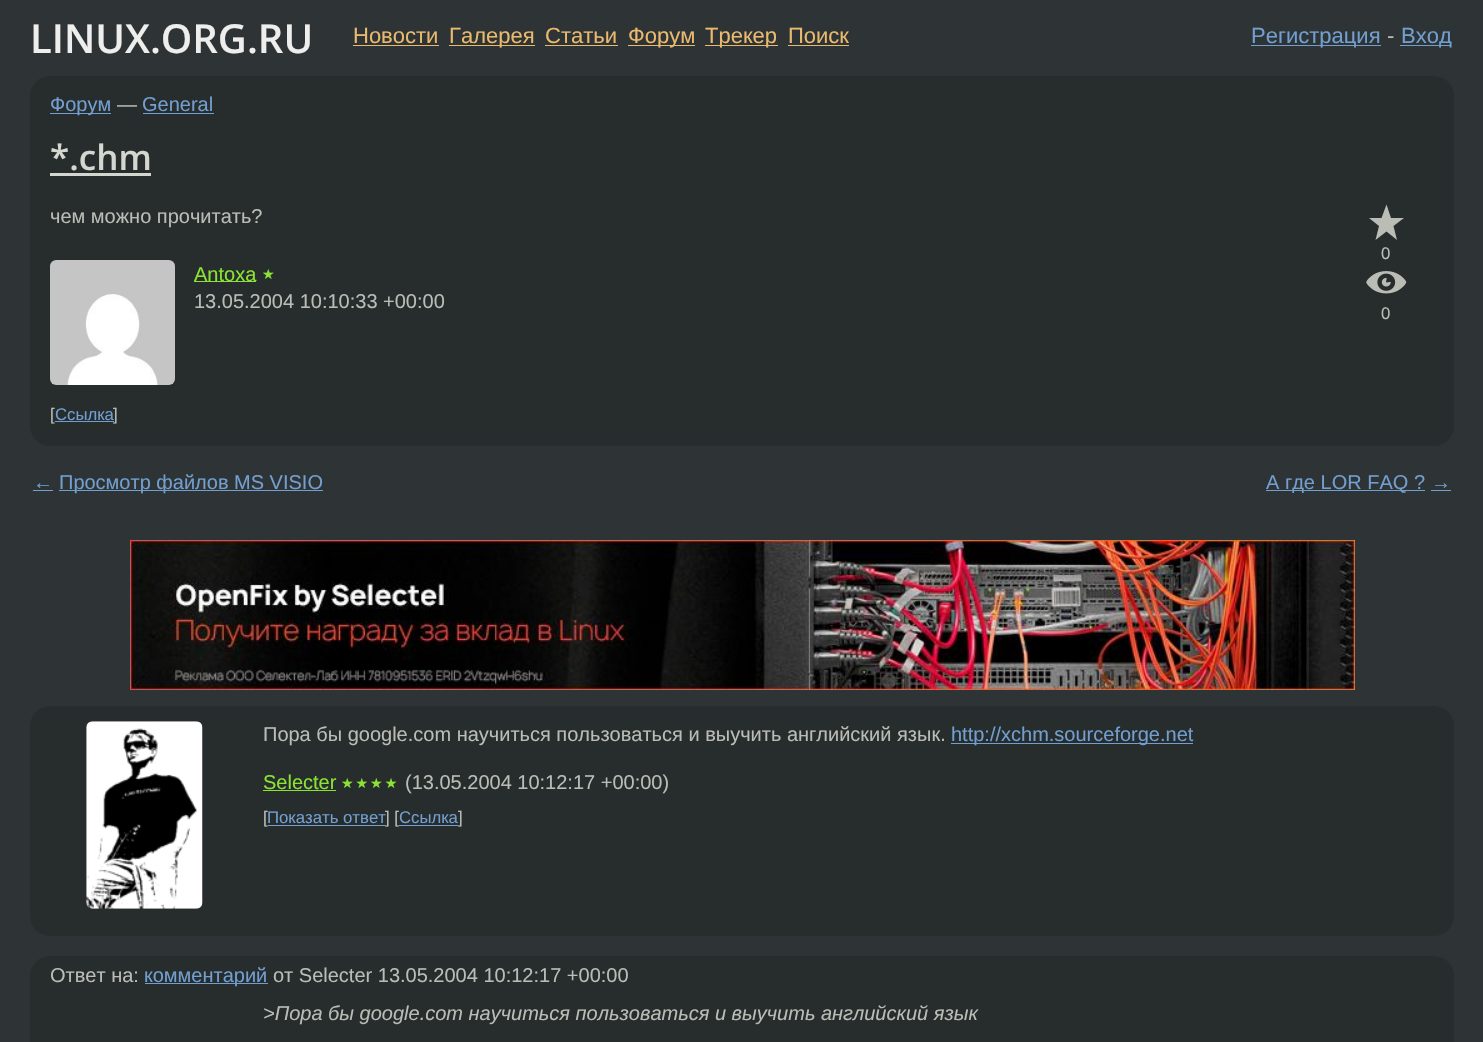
#include "include/core/SkBlurTypes.h"
#include "include/core/SkCanvas.h"
#include "include/core/SkData.h"
#include "include/core/SkFont.h"
#include "include/core/SkFontMgr.h"
#include "include/core/SkImage.h"
#include "include/core/SkMaskFilter.h"
#include "include/core/SkPaint.h"
#include "include/core/SkPathBuilder.h"
#include "include/core/SkTextBlob.h"
#include "include/effects/SkDashPathEffect.h"
#include "include/effects/SkGradientShader.h"
#include "include/utils/SkParsePath.h"

extern sk_sp<SkFontMgr> fontMgr;

void draw(SkCanvas* canvas) {
    SkPaint p;
    p.setAntiAlias(true);
    auto font = [&](const char* family, int weight, float size, bool italic = false) {
        SkFontStyle style(weight, SkFontStyle::kNormal_Width,
            italic ? SkFontStyle::kItalic_Slant : SkFontStyle::kUpright_Slant);
        SkFont result(fontMgr->matchFamilyStyle(family, style), size);
        result.setSubpixel(true);
        return result;
    };
    auto drawTracked = [&](const char* s, float x, float y, const SkFont& font, const SkPaint& ink, float letter, float word) {
        std::vector<SkGlyphID> glyphs(font.countText(s, strlen(s), SkTextEncoding::kUTF8));
        std::vector<float> xs(glyphs.size());
        font.textToGlyphs(s, strlen(s), SkTextEncoding::kUTF8, glyphs);
        font.getXPos(glyphs, xs, x);
        float extra = 0;
        for (size_t i = 0; i < glyphs.size(); i++) {
            xs[i] += extra;
            extra += letter + word * (glyphs[i] == font.unicharToGlyph(' '));
        }
        canvas->drawTextBlob(SkTextBlob::MakeFromPosHGlyphs(glyphs, xs, y, font), 0, 0, ink);
    };
    auto drawPhoto = [&](const char* path, float l, float t, float r, float b) {
        auto image = SkImages::DeferredFromEncodedData(SkData::MakeFromFileName(path));
        canvas->drawImageRect(image, SkRect::MakeLTRB(l, t, r, b), SkSamplingOptions());
    };
    canvas->clear(0xFF2E3436);
    auto font1 = font("Open Sans", 600, 40);
    p.setColor(0xFFEEEEEC);
    canvas->drawString("LINUX.ORG.RU", 30, 53, font1, p);
    auto font2 = font("Liberation Sans", 400, 22);
    p.setColor(0xFFE9B96E);
    canvas->drawString("Новости", 353, 43, font2, p);
    canvas->drawRect(SkRect::MakeLTRB(353, 45, 439, 46), p);
    canvas->drawRect(SkRect::MakeLTRB(449, 45, 535, 46), p);
    canvas->drawString("Галерея", 449, 43, font2, p);
    canvas->drawString("Статьи", 545, 43, font2, p);
    canvas->drawRect(SkRect::MakeLTRB(545, 45, 618, 46), p);
    canvas->drawRect(SkRect::MakeLTRB(628, 45, 695, 46), p);
    canvas->drawString("Форум", 628, 43, font2, p);
    canvas->drawRect(SkRect::MakeLTRB(705, 45, 778, 46), p);
    canvas->drawString("Трекер", 705, 43, font2, p);
    canvas->drawString("Поиск", 788, 43, font2, p);
    canvas->drawRect(SkRect::MakeLTRB(788, 45, 849, 46), p);
    p.setColor(0xFF729FCF);
    canvas->drawRect(SkRect::MakeLTRB(1251, 45, 1381, 46), p);
    canvas->drawString("Регистрация", 1251, 43, font2, p);
    p.setColor(0xFFBABDB6);
    canvas->drawString("-", 1387, 43, font2, p);
    p.setColor(0xFF729FCF);
    canvas->drawRect(SkRect::MakeLTRB(1400, 45, 1451, 46), p);
    canvas->drawString("Вход", 1401, 43, font2, p);
    p.setColor(0xFF272C2D);
    canvas->drawRoundRect(SkRect::MakeLTRB(30, 76, 1454, 446), 20, 20, p);
    p.setColor(0xFF729FCF);
    canvas->drawRect(SkRect::MakeLTRB(50, 113, 111, 114), p);
    auto font3 = font("Liberation Sans", 400, 20);
    canvas->drawString("Форум", 50, 111, font3, p);
    p.setColor(0xFFBABDB6);
    canvas->drawString("—", 117, 111, font3, p);
    p.setColor(0xFF729FCF);
    canvas->drawString("General", 142, 111, font3, p);
    canvas->drawRect(SkRect::MakeLTRB(143, 113, 214, 114), p);
    auto font4 = font("Open Sans", 600, 35);
    p.setColor(0xFFD3D7CF);
    canvas->drawString("*.chm", 50, 170, font4, p);
    canvas->drawRect(SkRect::MakeLTRB(50, 173, 151, 176), p);
    p.setColor(0xFFBABDB6);
    canvas->drawString("чем можно прочитать?", 50, 223, font3, p);
    drawPhoto("media/1.png", 50, 260, 175, 385);
    p.setColor(0xFF8AE234);
    canvas->drawRect(SkRect::MakeLTRB(194, 281, 256, 282), p);
    canvas->drawString("Antoxa", 194, 281, font3, p);
    auto font5 = font("DejaVu Sans", 400, 14);
    drawTracked("★", 262, 279, font5, p, 2, 0);
    p.setColor(0xFFBABDB6);
    canvas->drawString("13.05.2004 10:10:33 +00:00", 194, 308, font3, p);
    canvas->drawPath(SkPathBuilder().moveTo(1386.5f, 204.5f).lineTo(1391, 218).lineTo(1404, 218).lineTo(1393.5f, 226).lineTo(1397, 240).lineTo(1386.5f, 231.5f).lineTo(1375.5f, 240).lineTo(1379, 226).lineTo(1369, 218).lineTo(1381.5f, 218).close().detach(), p);
    auto font6 = font("Liberation Sans", 400, 16.75f);
    canvas->drawString("0", 1381, 259, font6, p);
    drawPhoto("media/2.png", 1366, 271, 1407, 294);
    canvas->drawString("0", 1381, 319, font6, p);
    canvas->drawString("[", 50, 420, font6, p);
    p.setColor(0xFF729FCF);
    canvas->drawRect(SkRect::MakeLTRB(55, 421, 114, 422), p);
    canvas->drawString("Ссылка", 55, 420, font6, p);
    p.setColor(0xFFBABDB6);
    canvas->drawString("]", 113, 420, font6, p);
    p.setColor(0xFF729FCF);
    canvas->drawString("←", 33, 489, font3, p);
    canvas->drawRect(SkRect::MakeLTRB(33, 490, 53, 491), p);
    canvas->drawRect(SkRect::MakeLTRB(59, 490, 323, 491), p);
    canvas->drawString("Просмотр файлов MS VISIO", 59, 489, font3, p);
    canvas->drawRect(SkRect::MakeLTRB(1266, 490, 1425, 491), p);
    canvas->drawString("А где LOR FAQ ?", 1266, 489, font3, p);
    canvas->drawString("→", 1431, 489, font3, p);
    canvas->drawRect(SkRect::MakeLTRB(1431, 490, 1451, 491), p);
    drawPhoto("media/3.png", 130, 540, 1355, 690);
    p.setColor(0xFF272C2D);
    canvas->drawRoundRect(SkRect::MakeLTRB(30, 706, 1454, 936), 20, 20, p);
    drawPhoto("media/4.png", 86, 721, 203, 909);
    p.setColor(0xFFBABDB6);
    canvas->drawString("Пора бы google.com научиться пользоваться и выучить английский язык.", 263, 741, font3, p);
    p.setColor(0xFF729FCF);
    canvas->drawRect(SkRect::MakeLTRB(951, 743, 1193, 744), p);
    canvas->drawString("http://xchm.sourceforge.net", 951, 741, font3, p);
    p.setColor(0xFF8AE234);
    canvas->drawString("Selecter", 263, 789, font3, p);
    canvas->drawRect(SkRect::MakeLTRB(263, 790, 336, 791), p);
    drawTracked("★★★★", 341, 788, font5, p, 2, 0);
    p.setColor(0xFFBABDB6);
    canvas->drawString("(13.05.2004 10:12:17 +00:00)", 405, 789, font3, p);
    canvas->drawString("[", 263, 823, font6, p);
    p.setColor(0xFF729FCF);
    canvas->drawString("Показать ответ", 267, 823, font6, p);
    p.setColor(0xFFBABDB6);
    canvas->drawString("] [", 385, 823, font6, p);
    p.setColor(0xFF729FCF);
    canvas->drawRect(SkRect::MakeLTRB(268, 825, 385, 826), p);
    canvas->drawRect(SkRect::MakeLTRB(399, 825, 458, 826), p);
    canvas->drawString("Ссылка", 399, 823, font6, p);
    p.setColor(0xFFBABDB6);
    canvas->drawString("]", 458, 823, font6, p);
    p.setColor(0xFF272C2D);
    canvas->drawRoundRect(SkRect::MakeLTRB(30, 956, 1454, 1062), 20, 20, p);
    p.setColor(0xFFBABDB6);
    canvas->drawString("Ответ на:", 50, 982, font3, p);
    p.setColor(0xFF729FCF);
    canvas->drawRect(SkRect::MakeLTRB(145, 983, 268, 984), p);
    canvas->drawString("комментарий", 144, 982, font3, p);
    p.setColor(0xFFBABDB6);
    canvas->drawString("от Selecter 13.05.2004 10:12:17 +00:00", 273, 982, font3, p);
    auto font7 = font("Liberation Sans", 400, 20, true);
    canvas->drawString(">Пора бы google.com научиться пользоваться и выучить английский язык", 263, 1020, font7, p);
}
